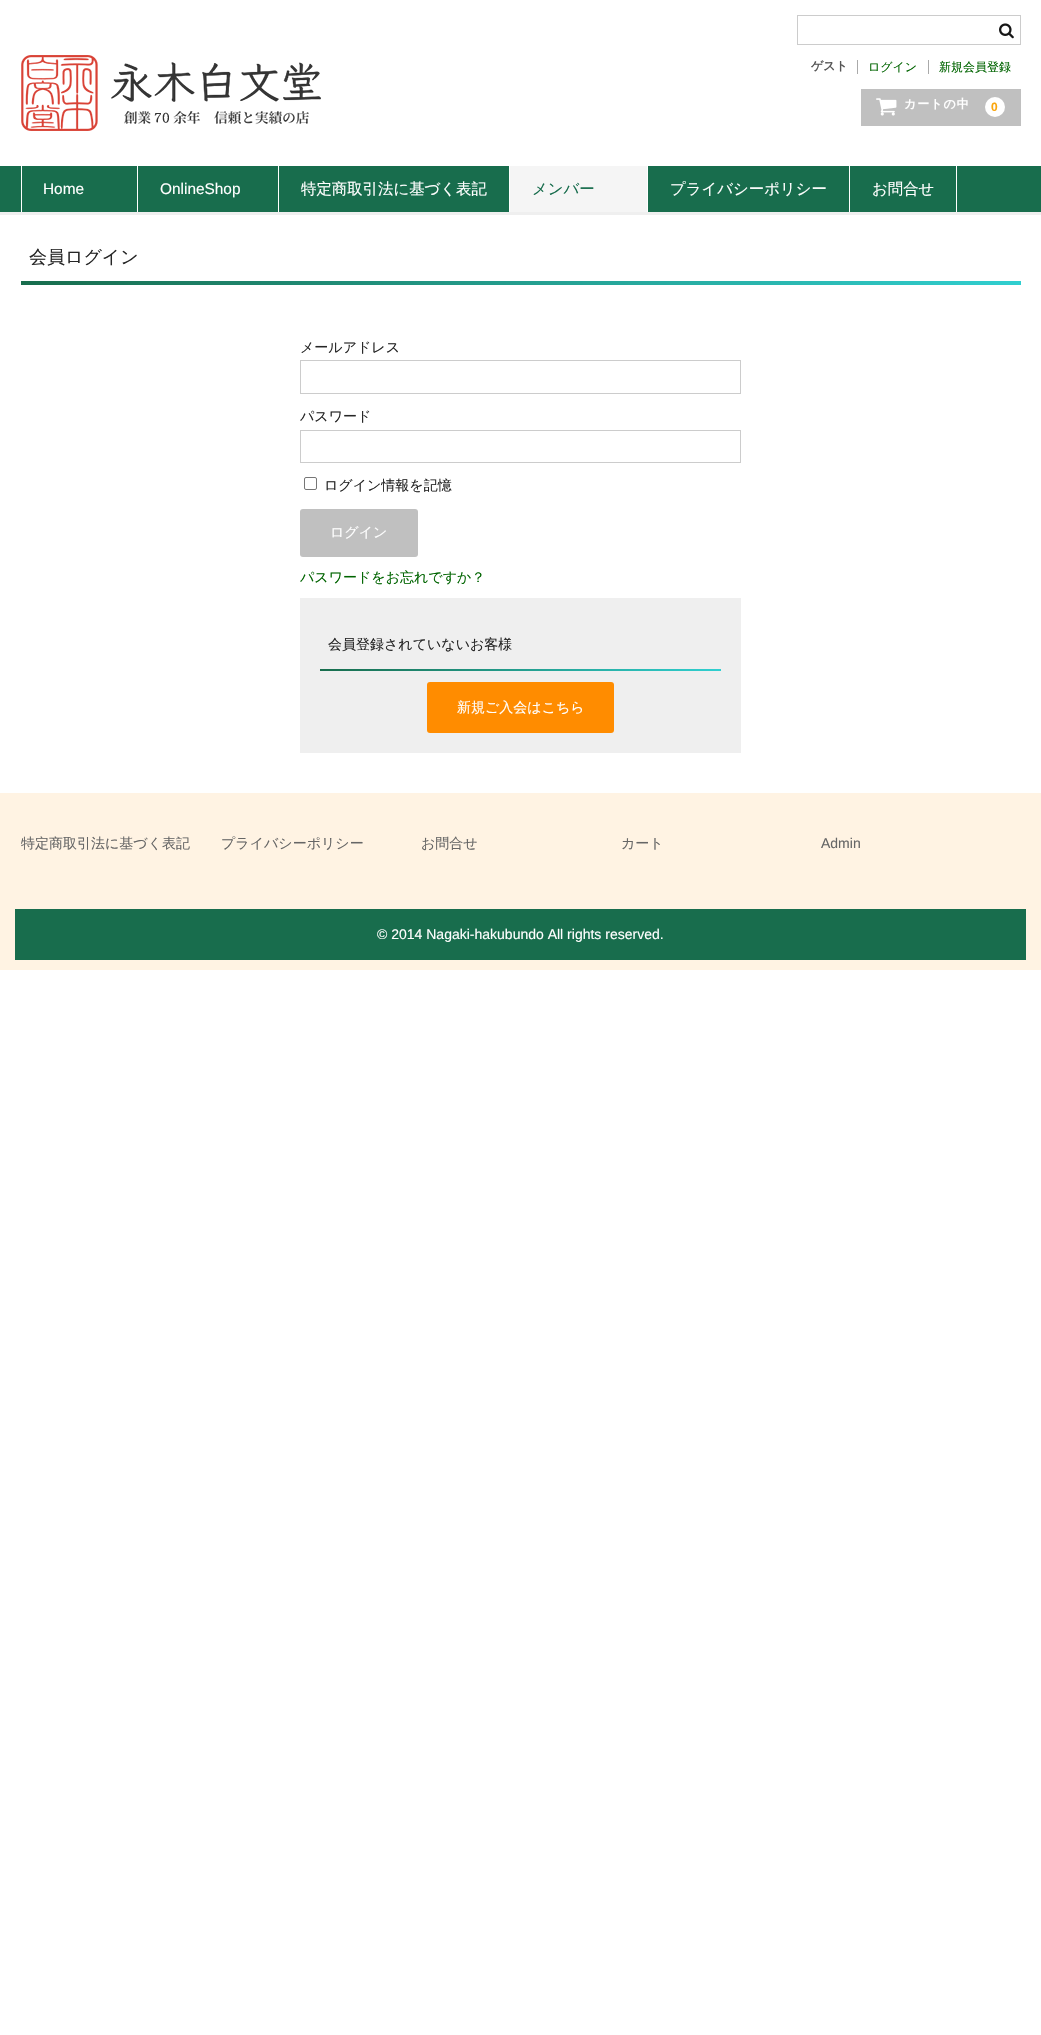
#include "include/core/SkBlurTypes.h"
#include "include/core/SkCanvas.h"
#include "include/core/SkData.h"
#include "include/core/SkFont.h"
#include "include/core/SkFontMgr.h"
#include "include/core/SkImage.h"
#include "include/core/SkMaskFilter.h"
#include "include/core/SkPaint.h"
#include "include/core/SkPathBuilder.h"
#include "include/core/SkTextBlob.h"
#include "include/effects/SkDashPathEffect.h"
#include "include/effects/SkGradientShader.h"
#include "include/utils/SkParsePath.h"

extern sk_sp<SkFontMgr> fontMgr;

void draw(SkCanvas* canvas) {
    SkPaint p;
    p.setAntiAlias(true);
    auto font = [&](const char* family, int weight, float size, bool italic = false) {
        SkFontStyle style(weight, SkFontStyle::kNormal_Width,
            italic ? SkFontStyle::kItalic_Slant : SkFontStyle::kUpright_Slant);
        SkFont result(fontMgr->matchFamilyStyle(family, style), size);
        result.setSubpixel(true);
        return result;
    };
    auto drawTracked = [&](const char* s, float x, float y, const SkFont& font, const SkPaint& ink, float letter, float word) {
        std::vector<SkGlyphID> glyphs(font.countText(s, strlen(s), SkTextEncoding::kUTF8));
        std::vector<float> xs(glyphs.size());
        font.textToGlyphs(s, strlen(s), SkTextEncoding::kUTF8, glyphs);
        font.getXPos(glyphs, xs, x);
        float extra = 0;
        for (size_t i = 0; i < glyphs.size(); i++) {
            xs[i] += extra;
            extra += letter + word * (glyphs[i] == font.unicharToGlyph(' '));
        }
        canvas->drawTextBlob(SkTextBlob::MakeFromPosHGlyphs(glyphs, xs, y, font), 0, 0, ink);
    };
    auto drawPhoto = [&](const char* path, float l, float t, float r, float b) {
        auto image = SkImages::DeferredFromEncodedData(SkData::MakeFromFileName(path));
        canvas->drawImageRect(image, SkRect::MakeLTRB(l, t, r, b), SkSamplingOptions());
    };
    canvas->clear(0xFFFFFFFF);
    p.setColor(0xFFEFEFEF);
    canvas->drawRect(SkRect::MakeLTRB(0, 212, 1041, 215), p);
    drawPhoto("media/1.png", 21, 55, 321, 131);
    p.setStyle(SkPaint::kStroke_Style);
    p.setStrokeWidth(1);
    p.setColor(0xFFCCCCCC);
    canvas->drawRect(SkRect::MakeLTRB(797.5f, 15.5f, 1020.5f, 44.5f), p);
    drawPhoto("media/2.png", 999, 23, 1014, 39);
    p.setStyle(SkPaint::kFill_Style);
    p.setColor(0xFFAAAAAA);
    canvas->drawRect(SkRect::MakeLTRB(857, 60, 858, 74), p);
    auto font1 = font("WenQuanYi Zen Hei", 700, 12);
    p.setColor(0xFF565656);
    canvas->drawString("ゲスト", 811, 70, font1, p);
    p.setColor(0xFFAAAAAA);
    canvas->drawRect(SkRect::MakeLTRB(928, 60, 929, 74), p);
    auto font2 = font("WenQuanYi Zen Hei", 500, 12);
    p.setColor(0xFF006400);
    canvas->drawString("ログイン", 868, 71, font2, p);
    canvas->drawString("新規会員登録", 939, 71, font2, p);
    p.setColor(0xFFC0C0C0);
    canvas->drawRect(SkRect::MakeLTRB(861, 89, 1021, 126), p);
    drawPhoto("media/3.png", 876, 98, 897, 116);
    p.setColor(0xFFFFFFFF);
    drawTracked("カートの中", 904, 108, font1, p, 1, 0);
    canvas->drawCircle(995, 107, 10, p);
    auto font3 = font("Liberation Sans", 700, 12);
    p.setColor(0xFFFBA60D);
    drawTracked("0", 991, 111, font3, p, 1, 0);
    {
        const struct { float l, t, r, b; SkColor color; } items[] = {
            {0, 166, 1041, 212, 0xFF186D4D},
            {137, 166, 138, 212, 0xFFFFFFFF},
            {21, 166, 22, 212, 0xFFFFFFFF},
        };
        for (auto [l, t, r, b, color] : items) {
            p.setColor(color);
            canvas->drawRect(SkRect::MakeLTRB(l, t, r, b), p);
        }
    }
    auto font4 = font("Liberation Sans", 400, 15.4f);
    canvas->drawString("Home", 43, 194, font4, p);
    canvas->drawRect(SkRect::MakeLTRB(278, 166, 279, 212), p);
    canvas->drawString("OnlineShop", 160, 194, font4, p);
    canvas->drawRect(SkRect::MakeLTRB(509, 166, 510, 212), p);
    auto font5 = font("WenQuanYi Zen Hei", 500, 15.4f);
    canvas->drawString("特定商取引法に基づく表記", 301, 194, font5, p);
    canvas->drawRect(SkRect::MakeLTRB(647, 166, 648, 212), p);
    p.setColor(0xFFF5F5F5);
    canvas->drawRect(SkRect::MakeLTRB(510, 166, 647, 212), p);
    p.setColor(0xFF186D4D);
    canvas->drawString("メンバー", 532, 194, font5, p);
    p.setColor(0xFFFFFFFF);
    canvas->drawRect(SkRect::MakeLTRB(849, 166, 850, 212), p);
    canvas->drawString("プライバシーポリシー", 670, 194, font5, p);
    canvas->drawRect(SkRect::MakeLTRB(956, 166, 957, 212), p);
    canvas->drawString("お問合せ", 872, 194, font5, p);
    auto font6 = font("WenQuanYi Zen Hei", 500, 18);
    p.setColor(0xFF262626);
    canvas->drawString("会員ログイン", 29, 263, font6, p);
    {
        const SkColor colors[] = {0xFF30CFD0, 0xFF186D4D};
        const float stops[] = {0, 1};
        const SkPoint ends[] = {{1021, 283}, {21, 283}};
        p.setShader(SkGradientShader::MakeLinear(ends, colors, stops, 2, SkTileMode::kClamp));
        p.setAlpha(255);
    }
    canvas->drawRect(SkRect::MakeLTRB(21, 281, 1021, 285), p);
    auto font7 = font("WenQuanYi Zen Hei", 500, 14);
    p.setShader(nullptr);
    p.setColor(0xFF262626);
    canvas->drawString("メールアドレス", 300, 352, font7, p);
    p.setStyle(SkPaint::kStroke_Style);
    p.setColor(0xFFCCCCCC);
    canvas->drawRect(SkRect::MakeLTRB(300.5f, 360.5f, 740.5f, 393.5f), p);
    p.setStyle(SkPaint::kFill_Style);
    p.setColor(0xFF262626);
    canvas->drawString("パスワード", 300, 421, font7, p);
    p.setStyle(SkPaint::kStroke_Style);
    p.setColor(0xFFCCCCCC);
    canvas->drawRect(SkRect::MakeLTRB(300.5f, 430.5f, 740.5f, 462.5f), p);
    p.setColor(0xFF767676);
    canvas->drawRoundRect(SkRect::MakeLTRB(304.5f, 477.5f, 316.5f, 489.5f), 1.5f, 1.5f, p);
    p.setStyle(SkPaint::kFill_Style);
    p.setColor(0xFF262626);
    canvas->drawString("ログイン情報を記憶", 324, 490, font7, p);
    p.setColor(0xFFC0C0C0);
    canvas->drawRoundRect(SkRect::MakeLTRB(300, 509, 418, 557), 3, 3, p);
    p.setColor(0xFFFFFFFF);
    canvas->drawString("ログイン", 330, 537, font7, p);
    p.setColor(0xFF006400);
    canvas->drawString("パスワードをお忘れですか？", 300, 582, font7, p);
    p.setColor(0xFFEFEFEF);
    canvas->drawRect(SkRect::MakeLTRB(300, 598, 741, 753), p);
    p.setColor(0xFF262626);
    canvas->drawString("会員登録されていないお客様", 328, 649, font7, p);
    {
        const SkColor colors[] = {0xFF30CFD0, 0xFF186D4D};
        const float stops[] = {0, 1};
        const SkPoint ends[] = {{721, 670}, {320, 670}};
        p.setShader(SkGradientShader::MakeLinear(ends, colors, stops, 2, SkTileMode::kClamp));
        p.setAlpha(255);
    }
    canvas->drawRect(SkRect::MakeLTRB(320, 669, 721, 671), p);
    p.setShader(nullptr);
    p.setColor(0xFFFF8C00);
    canvas->drawRoundRect(SkRect::MakeLTRB(427, 682, 614, 733), 3, 3, p);
    p.setColor(0xFFFFFFFF);
    canvas->drawString("新規ご入会はこちら", 457, 712, font7, p);
    p.setColor(0xFFFFF3E3);
    canvas->drawRect(SkRect::MakeLTRB(0, 793, 1041, 970), p);
    p.setColor(0xFF666666);
    {
        const struct { const char* s; float x, y; } items[] = {
            {"特定商取引法に基づく表記", 21, 848},
            {"プライバシーポリシー", 221, 848},
            {"お問合せ", 421, 848},
            {"カート", 621, 848},
        };
        for (auto [s, x, y] : items) {
            canvas->drawString(s, x, y, font7, p);
        }
    }
    auto font8 = font("Liberation Sans", 400, 14);
    canvas->drawString("Admin", 821, 848, font8, p);
    p.setColor(0xFF186D4D);
    canvas->drawRect(SkRect::MakeLTRB(15, 909, 1026, 960), p);
    p.setColor(0xFFFFFFFF);
    canvas->drawString("© 2014 Nagaki-hakubundo All rights reserved.", 377, 939, font8, p);
}
